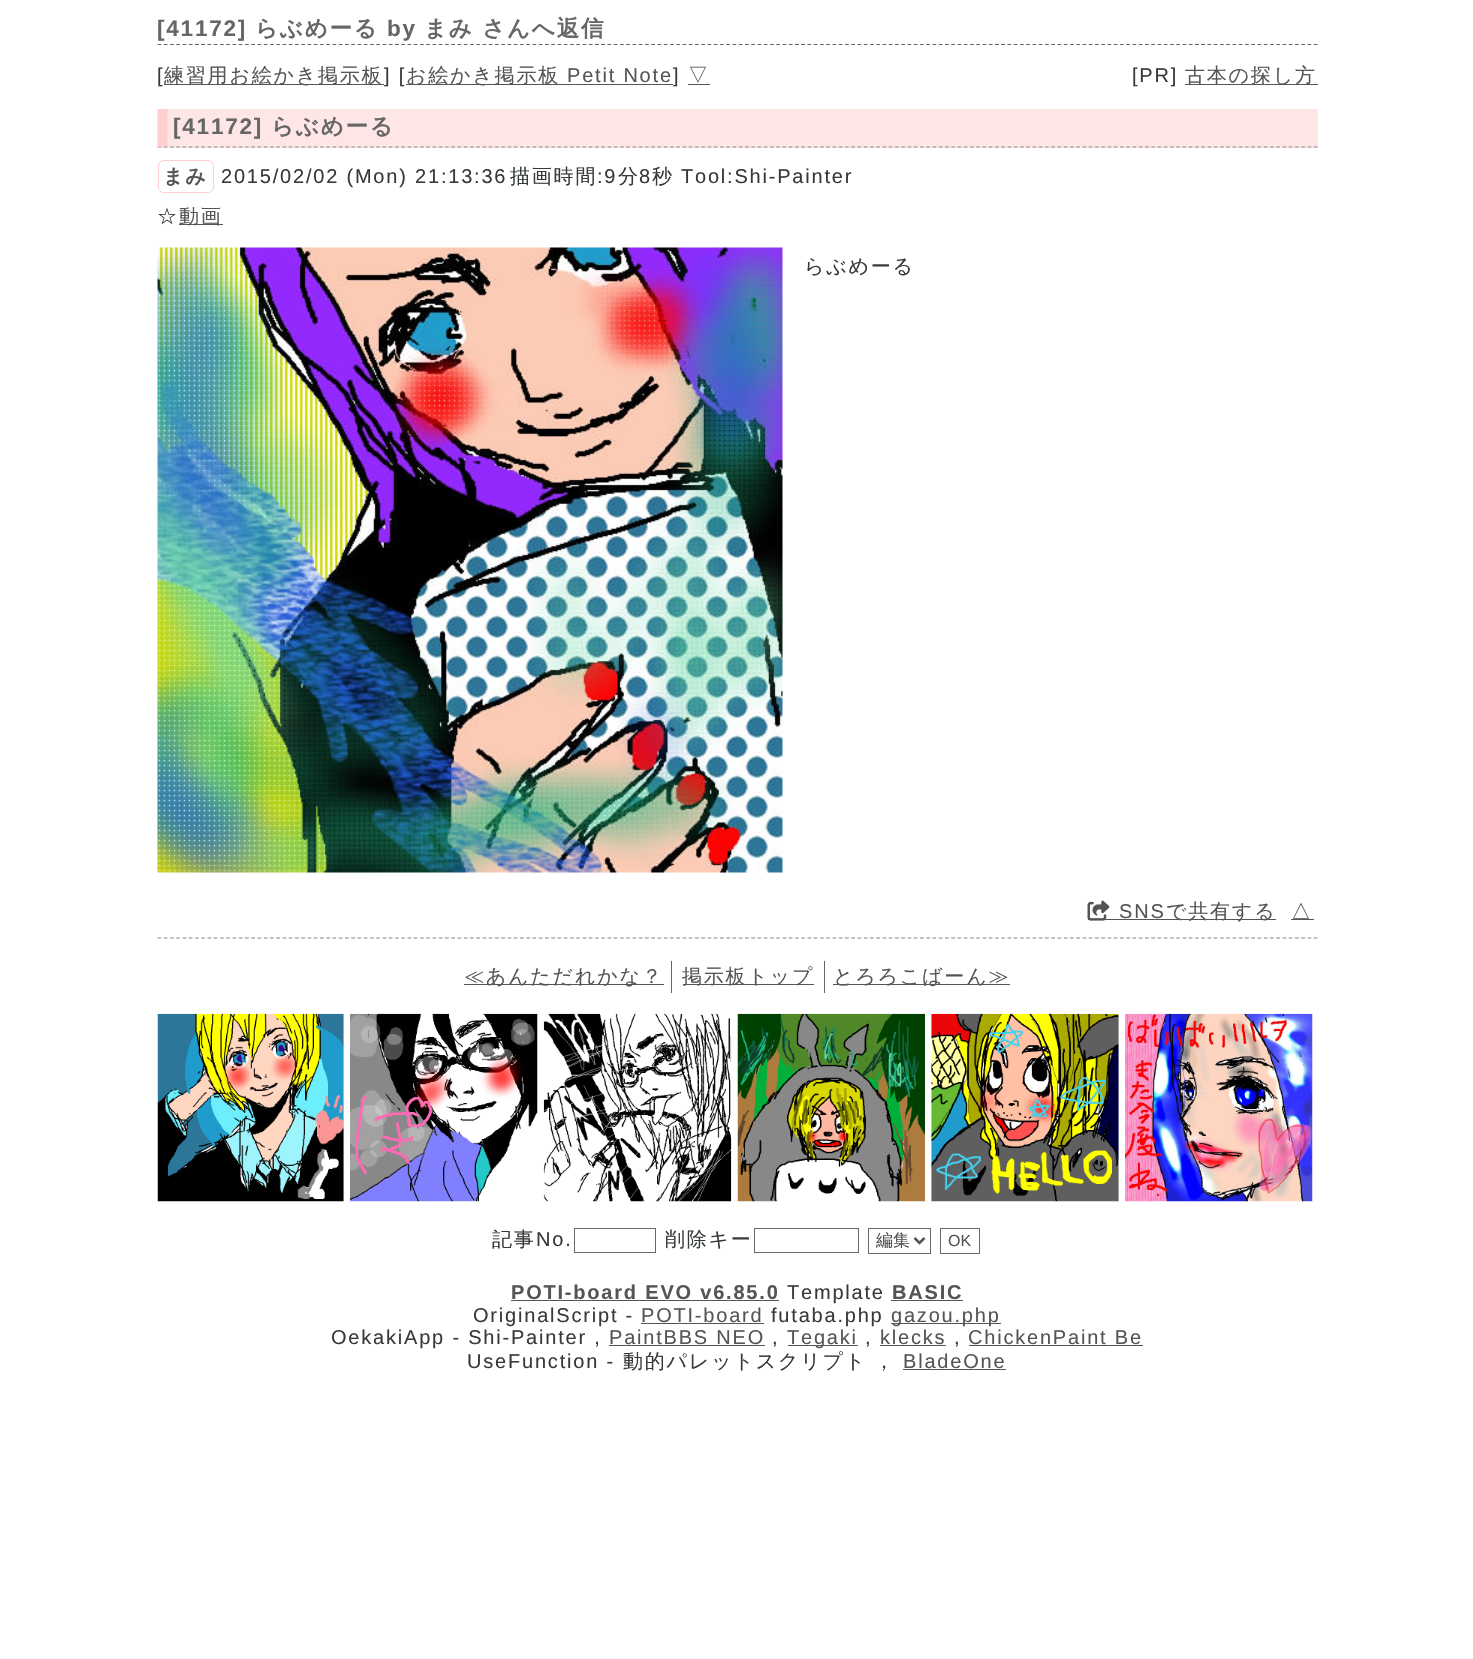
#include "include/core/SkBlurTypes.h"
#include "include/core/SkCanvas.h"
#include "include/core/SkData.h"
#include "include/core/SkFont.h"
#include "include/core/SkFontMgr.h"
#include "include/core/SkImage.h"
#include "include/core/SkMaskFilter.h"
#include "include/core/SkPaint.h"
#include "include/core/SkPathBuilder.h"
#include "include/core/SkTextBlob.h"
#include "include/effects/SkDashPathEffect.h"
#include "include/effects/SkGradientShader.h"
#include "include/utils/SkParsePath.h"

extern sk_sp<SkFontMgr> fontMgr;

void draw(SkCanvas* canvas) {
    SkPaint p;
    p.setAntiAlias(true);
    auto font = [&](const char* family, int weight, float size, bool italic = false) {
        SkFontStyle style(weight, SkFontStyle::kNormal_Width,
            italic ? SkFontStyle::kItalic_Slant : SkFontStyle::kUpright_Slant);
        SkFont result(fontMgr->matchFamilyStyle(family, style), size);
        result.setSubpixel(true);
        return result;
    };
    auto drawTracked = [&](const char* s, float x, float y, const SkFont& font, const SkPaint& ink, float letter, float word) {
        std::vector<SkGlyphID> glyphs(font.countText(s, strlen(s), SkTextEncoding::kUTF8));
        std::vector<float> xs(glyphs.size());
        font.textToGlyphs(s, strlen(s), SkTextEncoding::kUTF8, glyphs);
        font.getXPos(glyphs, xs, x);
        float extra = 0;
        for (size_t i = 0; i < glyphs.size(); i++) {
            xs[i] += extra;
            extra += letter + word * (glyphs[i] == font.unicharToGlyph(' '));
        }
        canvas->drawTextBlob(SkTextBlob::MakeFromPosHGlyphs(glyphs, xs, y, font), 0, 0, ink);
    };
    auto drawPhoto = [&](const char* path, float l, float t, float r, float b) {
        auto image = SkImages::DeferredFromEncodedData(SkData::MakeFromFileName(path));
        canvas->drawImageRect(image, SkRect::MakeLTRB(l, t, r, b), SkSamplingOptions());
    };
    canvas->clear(0xFFFFFFFF);
    p.setStyle(SkPaint::kStroke_Style);
    p.setStrokeWidth(1.2f);
    p.setColor(0xFF666666);
    p.setPathEffect(SkDashPathEffect::Make({{3.75f, 2.5f}}, 0));
    canvas->drawPath(SkPathBuilder().moveTo(157.5f, 44.5f).lineTo(1317.5f, 44.5f).detach(), p);
    p.setPathEffect(nullptr);
    auto font1 = font("Liberation Sans", 700, 22.5f);
    p.setStyle(SkPaint::kFill_Style);
    drawTracked("[41172]", 157, 36, font1, p, 1.8f, 0);
    auto font2 = font("WenQuanYi Zen Hei", 700, 22.5f);
    drawTracked("らぶめーる", 255, 36, font2, p, 1.8f, 0);
    drawTracked("by", 387, 36, font1, p, 1.8f, 0);
    drawTracked("まみ さんへ返信", 424, 36, font2, p, 1.8f, 0);
    auto font3 = font("Liberation Sans", 400, 20);
    p.setColor(0xFF363A3A);
    drawTracked("[", 157, 82, font3, p, 1.8f, 0);
    p.setColor(0xFF555555);
    canvas->drawRect(SkRect::MakeLTRB(164, 84, 384, 85), p);
    auto font4 = font("WenQuanYi Zen Hei", 500, 20);
    drawTracked("練習用お絵かき掲示板", 164, 82, font4, p, 1.8f, 0);
    p.setColor(0xFF363A3A);
    drawTracked("] [", 384, 82, font3, p, 1.8f, 0);
    p.setColor(0xFF555555);
    canvas->drawRect(SkRect::MakeLTRB(406, 84, 673, 85), p);
    drawTracked("お絵かき掲示板", 406, 82, font4, p, 1.8f, 0);
    drawTracked("Petit Note", 567, 82, font3, p, 1.8f, 0);
    p.setColor(0xFF363A3A);
    drawTracked("]", 673, 82, font3, p, 1.8f, 0);
    p.setColor(0xFF555555);
    drawTracked("▽", 688, 82, font4, p, 1.8f, 0);
    canvas->drawRect(SkRect::MakeLTRB(688, 84, 710, 85), p);
    p.setColor(0xFF363A3A);
    drawTracked("[PR]", 1132, 82, font3, p, 1.8f, 0);
    p.setColor(0xFF555555);
    canvas->drawRect(SkRect::MakeLTRB(1185, 84, 1318, 85), p);
    drawTracked("古本の探し方", 1185, 82, font4, p, 1.8f, 0);
    p.setColor(0xFFFFE6E6);
    canvas->drawRect(SkRect::MakeLTRB(158, 109, 1318, 148), p);
    p.setStyle(SkPaint::kStroke_Style);
    p.setColor(0xFF888888);
    p.setPathEffect(SkDashPathEffect::Make({{3.75f, 2.5f}}, 0));
    canvas->drawPath(SkPathBuilder().moveTo(157.5f, 147).lineTo(1317.5f, 147).detach(), p);
    p.setPathEffect(nullptr);
    p.setStyle(SkPaint::kFill_Style);
    p.setColor(0xFFFFCFCF);
    canvas->drawPath(SkPathBuilder().moveTo(157.5f, 147.5f).lineTo(157.5f, 109).lineTo(167.5f, 109).lineTo(167.5f, 146).close().detach(), p);
    p.setColor(0xFF666666);
    drawTracked("[41172]", 173, 134, font1, p, 1.8f, 0);
    drawTracked("らぶめーる", 271, 134, font2, p, 1.8f, 0);
    p.setStyle(SkPaint::kStroke_Style);
    p.setStrokeWidth(1);
    p.setColor(0xFFFFCFCF);
    canvas->drawRoundRect(SkRect::MakeLTRB(158.5f, 160.5f, 213.5f, 192.5f), 5.5f, 5.5f, p);
    auto font5 = font("WenQuanYi Zen Hei", 700, 20);
    p.setStyle(SkPaint::kFill_Style);
    p.setColor(0xFF555555);
    drawTracked("まみ", 163, 183, font5, p, 1.8f, 0);
    p.setColor(0xFF363A3A);
    drawTracked("2015/02/02 (Mon) 21:13:36", 221, 183, font3, p, 1.8f, 0);
    drawTracked("描画時間", 510, 183, font4, p, 1.8f, 0);
    drawTracked(":9", 597, 183, font3, p, 1.8f, 0);
    drawTracked("分", 618, 183, font4, p, 1.8f, 0);
    drawTracked("8", 639, 183, font3, p, 1.8f, 0);
    drawTracked("秒", 652, 183, font4, p, 1.8f, 0);
    drawTracked("Tool:Shi-Painter", 681, 183, font3, p, 1.8f, 0);
    drawTracked("☆", 157, 223, font4, p, 1.8f, 0);
    p.setColor(0xFF555555);
    canvas->drawRect(SkRect::MakeLTRB(179, 224, 223, 225), p);
    drawTracked("動画", 179, 223, font4, p, 1.8f, 0);
    drawPhoto("media/1.png", 157, 247, 783, 873);
    p.setColor(0xFF363A3A);
    drawTracked("らぶめーる", 804, 273, font4, p, 1.8f, 0);
    p.setColor(0xFF555555);
    canvas->drawRect(SkRect::MakeLTRB(1088, 919, 1276, 920), p);
    drawPhoto("media/2.png", 1087, 900, 1110, 921);
    drawTracked("SNS", 1119, 918, font3, p, 1.8f, 0);
    drawTracked("で共有する", 1166, 918, font4, p, 1.8f, 0);
    drawTracked("△", 1291, 918, font4, p, 1.8f, 0);
    canvas->drawRect(SkRect::MakeLTRB(1291, 919, 1314, 920), p);
    p.setStyle(SkPaint::kStroke_Style);
    p.setStrokeWidth(1.2f);
    p.setColor(0xFF888888);
    p.setPathEffect(SkDashPathEffect::Make({{3.75f, 2.5f}}, 0));
    canvas->drawPath(SkPathBuilder().moveTo(157.5f, 938).lineTo(1317.5f, 938).detach(), p);
    p.setPathEffect(nullptr);
    p.setStyle(SkPaint::kFill_Style);
    p.setColor(0xFF555555);
    canvas->drawRect(SkRect::MakeLTRB(464, 984, 664, 985), p);
    drawTracked("≪あんただれかな？", 464, 983, font4, p, 1.8f, 0);
    {
        const struct { float l, t, r, b; SkColor color; } items[] = {
            {824, 961, 825, 993, 0xFF666666},
            {671, 961, 672, 993, 0xFF666666},
            {683, 984, 814, 985, 0xFF555555},
        };
        for (auto [l, t, r, b, color] : items) {
            p.setColor(color);
            canvas->drawRect(SkRect::MakeLTRB(l, t, r, b), p);
        }
    }
    drawTracked("掲示板トップ", 682, 983, font4, p, 1.8f, 0);
    canvas->drawRect(SkRect::MakeLTRB(833, 984, 1010, 985), p);
    drawTracked("とろろこばーん≫", 833, 983, font4, p, 1.8f, 0);
    drawPhoto("media/3.png", 157, 1013, 344, 1202);
    drawPhoto("media/4.png", 350, 1013, 538, 1202);
    drawPhoto("media/5.png", 543, 1013, 732, 1202);
    drawPhoto("media/6.png", 737, 1013, 925, 1202);
    drawPhoto("media/7.png", 931, 1013, 1119, 1202);
    drawPhoto("media/8.png", 1125, 1013, 1313, 1202);
    p.setColor(0xFF363A3A);
    drawTracked("記事", 492, 1246, font4, p, 1.8f, 0);
    drawTracked("No.", 536, 1246, font3, p, 1.8f, 0);
    p.setStyle(SkPaint::kStroke_Style);
    p.setStrokeWidth(1);
    p.setColor(0xFF686868);
    canvas->drawRect(SkRect::MakeLTRB(574.5f, 1228.5f, 655.5f, 1252.5f), p);
    p.setStyle(SkPaint::kFill_Style);
    p.setColor(0xFF363A3A);
    drawTracked("削除キー", 665, 1246, font4, p, 1.8f, 0);
    p.setStyle(SkPaint::kStroke_Style);
    p.setColor(0xFF686868);
    canvas->drawRect(SkRect::MakeLTRB(754.5f, 1228.5f, 858.5f, 1252.5f), p);
    canvas->drawRect(SkRect::MakeLTRB(868.5f, 1228.5f, 930.5f, 1253.5f), p);
    p.setStrokeWidth(2.5f);
    p.setColor(0xFF555555);
    canvas->drawPath(SkPathBuilder().moveTo(914.5f, 1238).lineTo(919.5f, 1243).lineTo(924.5f, 1238).detach(), p);
    auto font6 = font("WenQuanYi Zen Hei", 500, 17);
    p.setStyle(SkPaint::kFill_Style);
    canvas->drawString("編集", 876, 1246, font6, p);
    p.setStyle(SkPaint::kStroke_Style);
    p.setStrokeWidth(1);
    p.setColor(0xFF686868);
    canvas->drawRect(SkRect::MakeLTRB(940.5f, 1228.5f, 979.5f, 1253.5f), p);
    auto font7 = font("Liberation Sans", 400, 16);
    p.setStyle(SkPaint::kFill_Style);
    p.setColor(0xFF555555);
    canvas->drawString("OK", 948, 1246, font7, p);
    auto font8 = font("Liberation Sans", 700, 20);
    drawTracked("POTI-board EVO v6.85.0", 511, 1299, font8, p, 1.8f, 0);
    canvas->drawRect(SkRect::MakeLTRB(511, 1300, 779, 1301), p);
    p.setColor(0xFF363A3A);
    drawTracked("Template", 787, 1299, font3, p, 1.8f, 0);
    p.setColor(0xFF555555);
    drawTracked("BASIC", 892, 1299, font8, p, 1.8f, 0);
    canvas->drawRect(SkRect::MakeLTRB(891, 1300, 963, 1301), p);
    p.setColor(0xFF363A3A);
    drawTracked("OriginalScript -", 473, 1322, font3, p, 1.8f, 0);
    p.setColor(0xFF555555);
    drawTracked("POTI-board", 641, 1322, font3, p, 1.8f, 0);
    canvas->drawRect(SkRect::MakeLTRB(641, 1323, 764, 1324), p);
    p.setColor(0xFF363A3A);
    drawTracked("futaba.php", 771, 1322, font3, p, 1.8f, 0);
    p.setColor(0xFF555555);
    canvas->drawRect(SkRect::MakeLTRB(891, 1323, 1001, 1324), p);
    drawTracked("gazou.php", 891, 1322, font3, p, 1.8f, 0);
    p.setColor(0xFF363A3A);
    drawTracked("OekakiApp - Shi-Painter ,", 331, 1344, font3, p, 1.8f, 0);
    p.setColor(0xFF555555);
    drawTracked("PaintBBS NEO", 609, 1344, font3, p, 1.8f, 0);
    canvas->drawRect(SkRect::MakeLTRB(609, 1345, 765, 1346), p);
    p.setColor(0xFF363A3A);
    drawTracked(",", 772, 1344, font3, p, 1.8f, 0);
    p.setColor(0xFF555555);
    canvas->drawRect(SkRect::MakeLTRB(788, 1345, 858, 1346), p);
    drawTracked("Tegaki", 787, 1344, font3, p, 1.8f, 0);
    p.setColor(0xFF363A3A);
    drawTracked(",", 865, 1344, font3, p, 1.8f, 0);
    p.setColor(0xFF555555);
    drawTracked("klecks", 880, 1344, font3, p, 1.8f, 0);
    canvas->drawRect(SkRect::MakeLTRB(880, 1345, 946, 1346), p);
    p.setColor(0xFF363A3A);
    drawTracked(",", 954, 1344, font3, p, 1.8f, 0);
    p.setColor(0xFF555555);
    drawTracked("ChickenPaint Be", 968, 1344, font3, p, 1.8f, 0);
    canvas->drawRect(SkRect::MakeLTRB(969, 1345, 1143, 1346), p);
    p.setColor(0xFF363A3A);
    drawTracked("UseFunction -", 467, 1368, font3, p, 1.8f, 0);
    drawTracked("動的パレットスクリプト", 623, 1368, font4, p, 1.8f, 0);
    drawTracked("，", 874, 1368, font4, p, 1.8f, 0);
    p.setColor(0xFF555555);
    drawTracked("BladeOne", 903, 1368, font3, p, 1.8f, 0);
    canvas->drawRect(SkRect::MakeLTRB(903, 1369, 1006, 1370), p);
}
